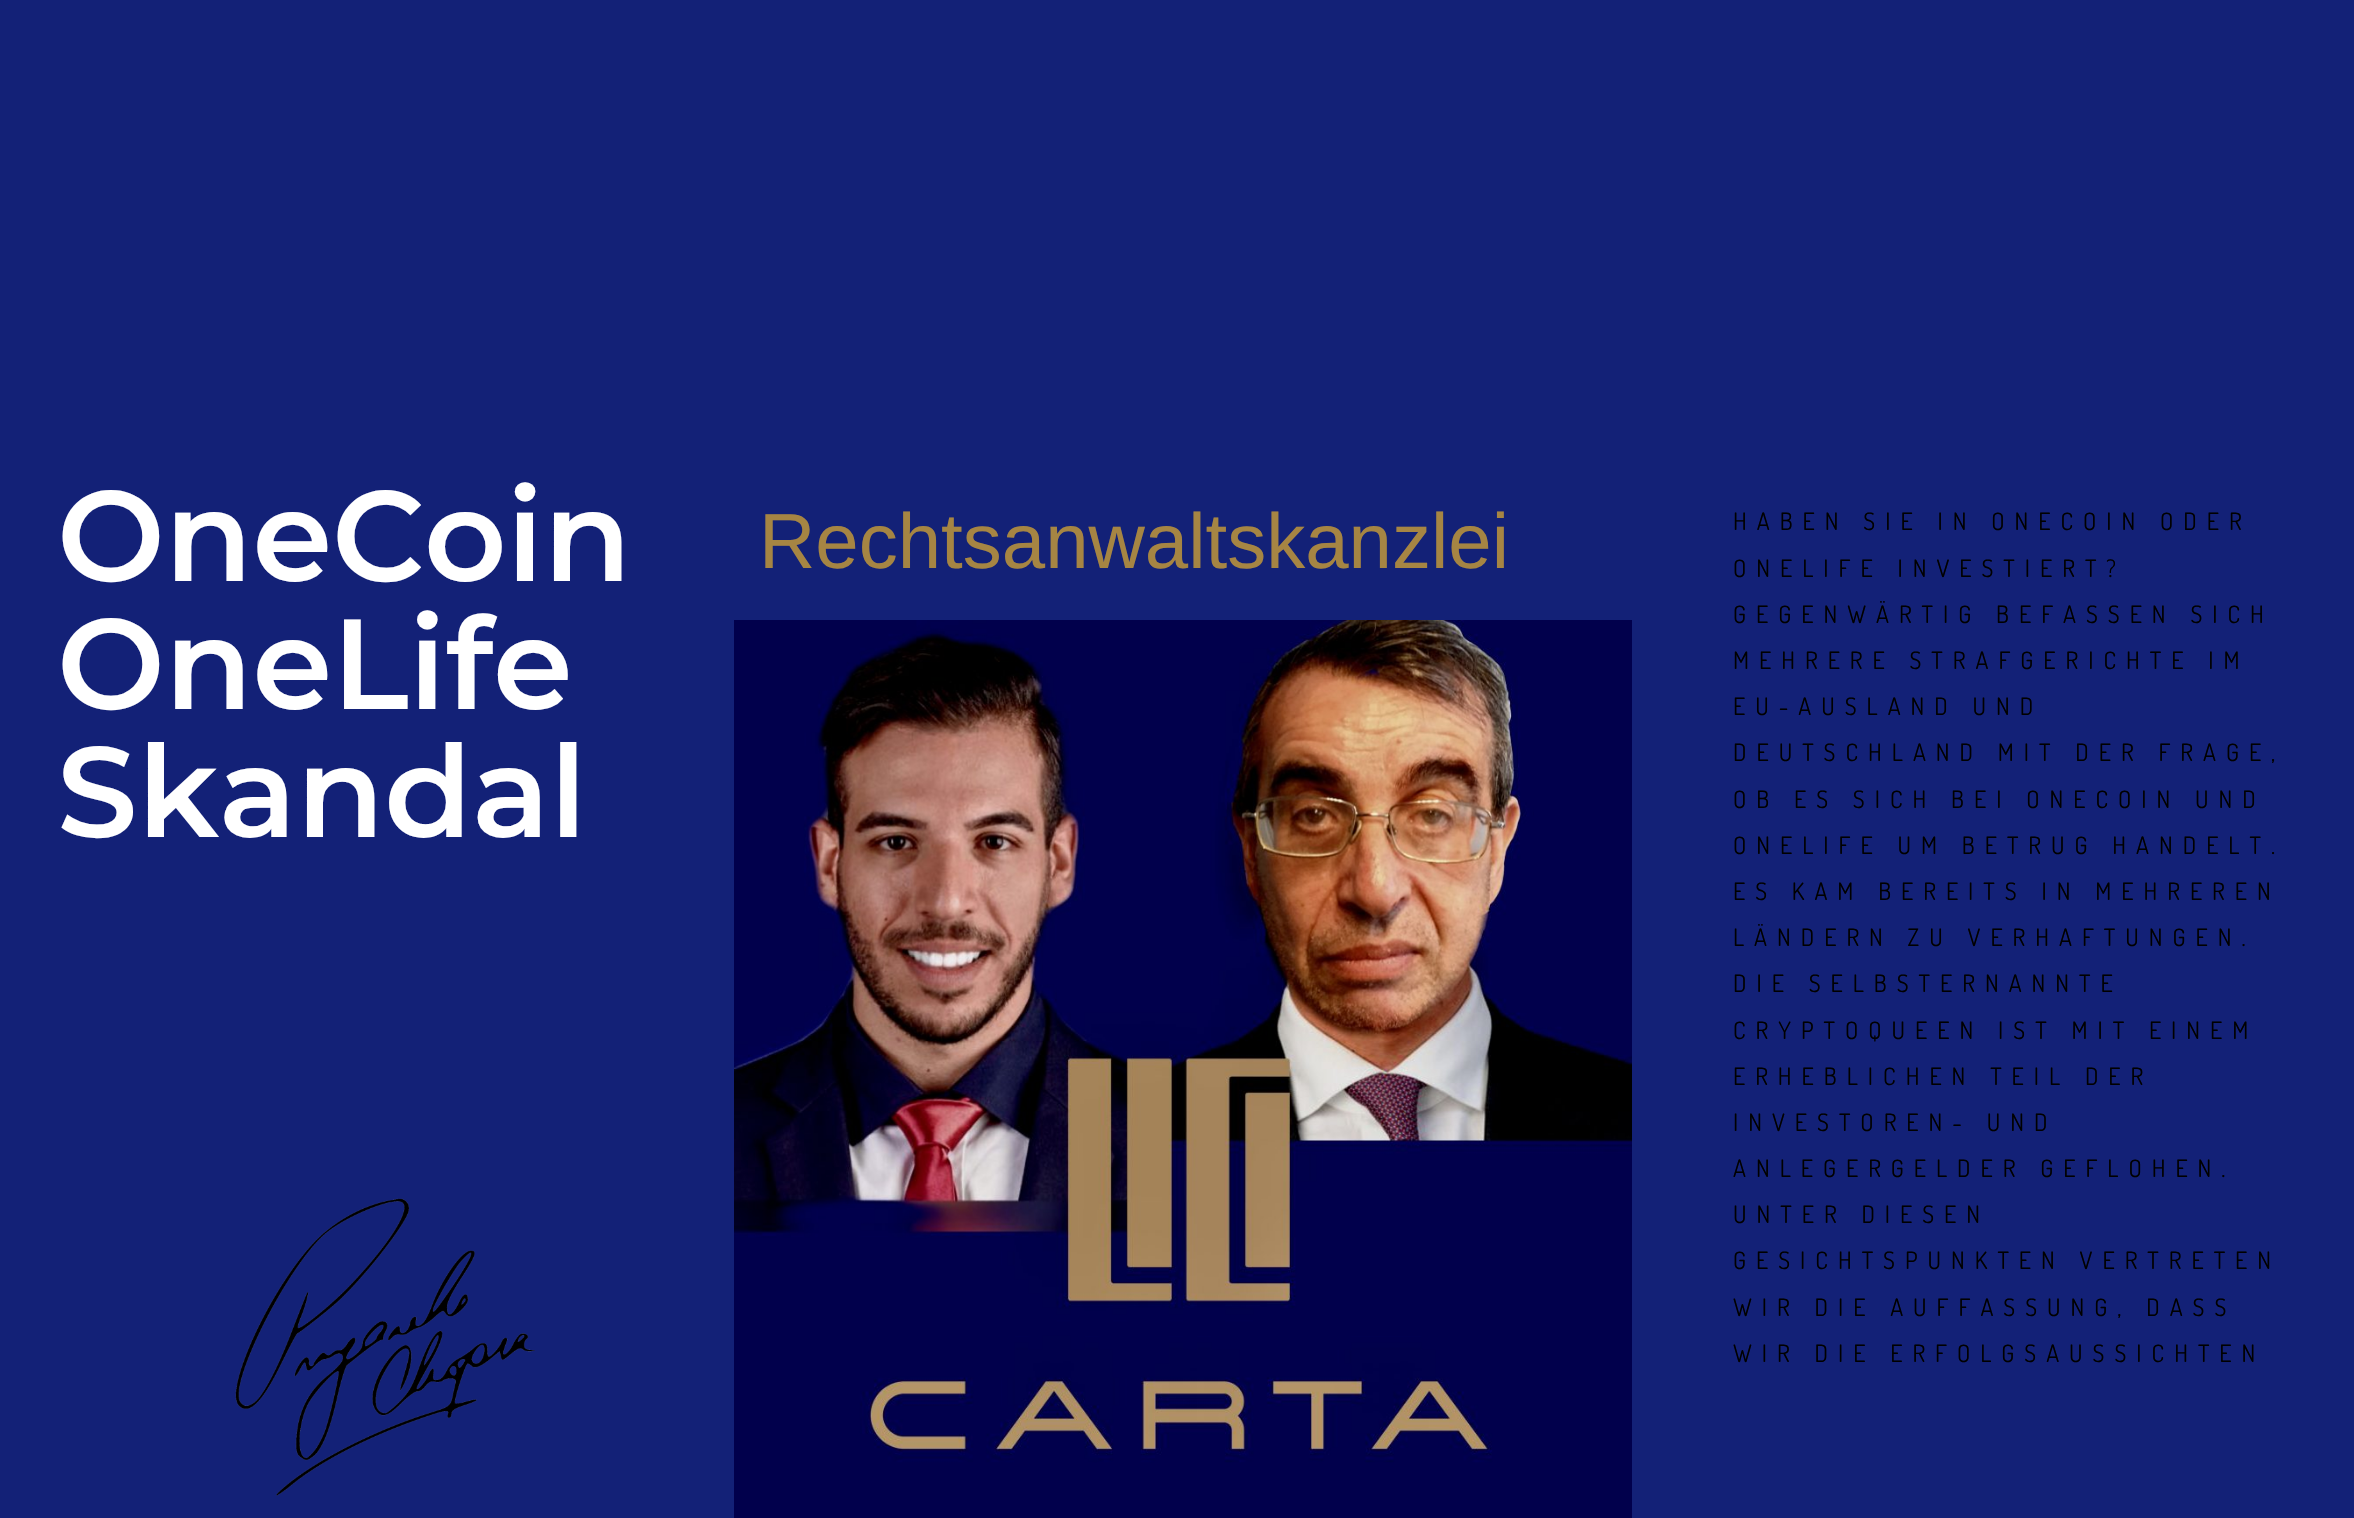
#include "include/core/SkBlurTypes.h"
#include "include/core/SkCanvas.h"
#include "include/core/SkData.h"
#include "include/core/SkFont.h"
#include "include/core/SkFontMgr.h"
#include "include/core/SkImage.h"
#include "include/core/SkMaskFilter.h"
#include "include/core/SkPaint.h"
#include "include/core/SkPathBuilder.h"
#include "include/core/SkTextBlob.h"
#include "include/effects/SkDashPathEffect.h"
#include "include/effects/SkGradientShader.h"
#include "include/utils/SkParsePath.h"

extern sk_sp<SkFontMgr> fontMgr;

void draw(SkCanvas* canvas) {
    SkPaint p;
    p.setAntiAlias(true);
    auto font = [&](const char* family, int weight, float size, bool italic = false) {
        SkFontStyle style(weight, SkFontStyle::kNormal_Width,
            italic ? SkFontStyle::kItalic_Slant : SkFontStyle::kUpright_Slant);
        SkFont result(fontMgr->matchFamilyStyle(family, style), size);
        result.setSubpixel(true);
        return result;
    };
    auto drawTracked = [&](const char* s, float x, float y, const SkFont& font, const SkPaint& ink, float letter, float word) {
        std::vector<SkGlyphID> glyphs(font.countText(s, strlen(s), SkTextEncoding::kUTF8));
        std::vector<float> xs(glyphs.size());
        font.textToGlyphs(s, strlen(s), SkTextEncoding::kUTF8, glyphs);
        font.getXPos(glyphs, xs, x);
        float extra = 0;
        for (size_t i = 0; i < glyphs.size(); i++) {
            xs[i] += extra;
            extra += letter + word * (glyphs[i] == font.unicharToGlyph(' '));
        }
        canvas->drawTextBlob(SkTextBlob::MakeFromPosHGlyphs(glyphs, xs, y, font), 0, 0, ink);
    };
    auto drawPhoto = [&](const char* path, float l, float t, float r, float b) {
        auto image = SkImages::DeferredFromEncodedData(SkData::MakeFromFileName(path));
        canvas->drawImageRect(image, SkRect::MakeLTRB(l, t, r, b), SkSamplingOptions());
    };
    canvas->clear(0xFF132177);
    auto font1 = font("Montserrat", 600, 128);
    p.setColor(0xFFFFFFFF);
    {
        const struct { const char* s; float x, y; } items[] = {
            {"OneCoin", 57, 581},
            {"OneLife", 57, 709},
            {"Skandal", 57, 837},
        };
        for (auto [s, x, y] : items) {
            canvas->drawString(s, x, y, font1, p);
        }
    }
    drawPhoto("media/1.png", 235, 1198, 535, 1496);
    auto font2 = font("Liberation Sans", 400, 78);
    p.setColor(0xFFA68543);
    canvas->drawString("Rechtsanwaltskanzlei", 759, 568, font2, p);
    drawPhoto("media/2.png", 734, 620, 1632, 1518);
    auto font3 = font("Dosis", 400, 24);
    p.setColor(0xFF000000);
    {
        const struct { const char* s; float x, y; } items[] = {
            {"HABEN SIE IN ONECOIN ODER", 1733, 530},
            {"ONELIFE INVESTIERT?", 1733, 577},
            {"GEGENWÄRTIG BEFASSEN SICH", 1733, 623},
            {"MEHRERE STRAFGERICHTE IM", 1733, 669},
            {"EU-AUSLAND UND", 1733, 715},
            {"DEUTSCHLAND MIT DER FRAGE,", 1733, 761},
            {"OB ES SICH BEI ONECOIN UND", 1733, 808},
            {"ONELIFE UM BETRUG HANDELT.", 1733, 854},
            {"ES KAM BEREITS IN MEHREREN", 1733, 900},
            {"LÄNDERN ZU VERHAFTUNGEN.", 1733, 946},
            {"DIE SELBSTERNANNTE", 1733, 992},
            {"CRYPTOQUEEN IST MIT EINEM", 1733, 1039},
            {"ERHEBLICHEN TEIL DER", 1733, 1085},
            {"INVESTOREN- UND", 1733, 1131},
            {"ANLEGERGELDER GEFLOHEN.", 1733, 1177},
            {"UNTER DIESEN", 1733, 1223},
            {"GESICHTSPUNKTEN VERTRETEN", 1733, 1269},
            {"WIR DIE AUFFASSUNG, DASS", 1733, 1316},
            {"WIR DIE ERFOLGSAUSSICHTEN", 1733, 1362},
        };
        for (auto [s, x, y] : items) {
            drawTracked(s, x, y, font3, p, 10, 0);
        }
    }
}
